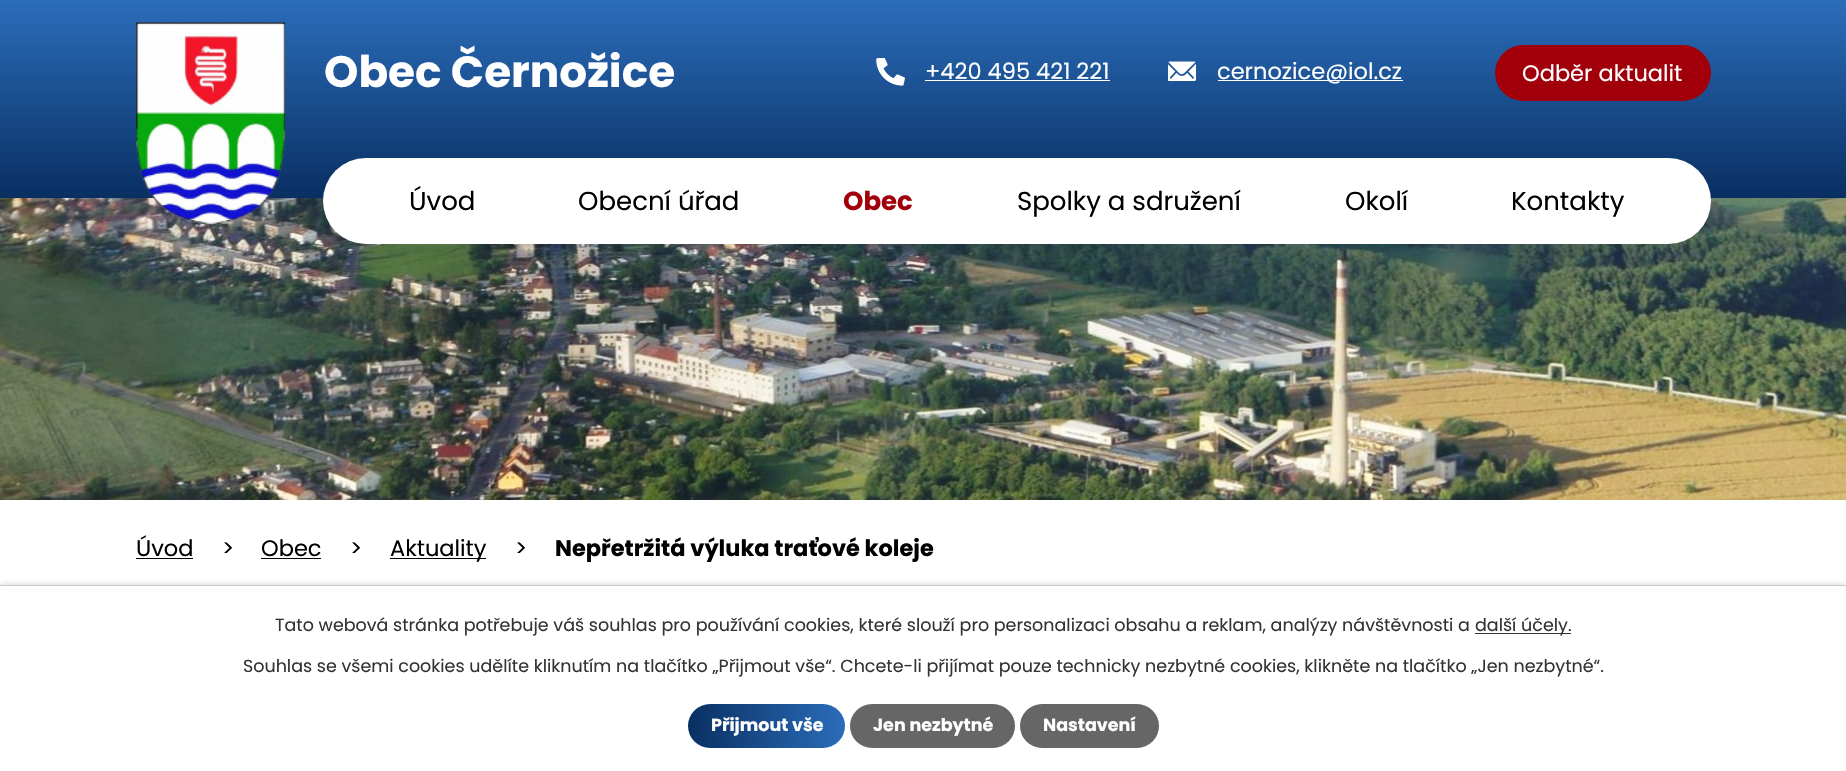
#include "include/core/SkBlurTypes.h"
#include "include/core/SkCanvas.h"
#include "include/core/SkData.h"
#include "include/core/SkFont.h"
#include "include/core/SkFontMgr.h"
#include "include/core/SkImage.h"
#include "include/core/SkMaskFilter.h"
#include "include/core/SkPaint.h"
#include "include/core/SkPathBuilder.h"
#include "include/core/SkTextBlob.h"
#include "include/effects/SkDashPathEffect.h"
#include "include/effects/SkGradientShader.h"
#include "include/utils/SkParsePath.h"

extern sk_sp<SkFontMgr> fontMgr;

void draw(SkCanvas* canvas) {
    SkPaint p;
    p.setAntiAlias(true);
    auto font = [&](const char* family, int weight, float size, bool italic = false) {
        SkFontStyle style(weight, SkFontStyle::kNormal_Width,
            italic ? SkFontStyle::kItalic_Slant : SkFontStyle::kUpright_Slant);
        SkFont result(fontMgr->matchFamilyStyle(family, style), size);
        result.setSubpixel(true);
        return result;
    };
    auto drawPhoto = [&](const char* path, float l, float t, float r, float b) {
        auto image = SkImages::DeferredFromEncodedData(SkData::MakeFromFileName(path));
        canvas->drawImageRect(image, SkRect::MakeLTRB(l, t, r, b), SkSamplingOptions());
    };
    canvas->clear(0xFFFFFFFF);
    {
        const SkColor colors[] = {0xFF2B6DBA, 0xFF092F62};
        const float stops[] = {0, 1};
        const SkPoint ends[] = {{923, 0}, {923, 198}};
        p.setShader(SkGradientShader::MakeLinear(ends, colors, stops, 2, SkTileMode::kClamp));
        p.setAlpha(255);
    }
    canvas->drawRect(SkRect::MakeLTRB(0, 0, 1846, 198), p);
    drawPhoto("media/4.png", 0, 198, 1846, 500);
    drawPhoto("media/1.png", 136, 22, 285, 225);
    auto font1 = font("Poppins", 700, 43.75f);
    p.setShader(nullptr);
    p.setColor(0xFFFFFFFF);
    canvas->drawString("Obec Černožice", 324, 87, font1, p);
    drawPhoto("media/2.png", 876, 58, 905, 86);
    auto font2 = font("Poppins", 400, 22.5f);
    canvas->drawString("+420 495 421 221", 925, 79, font2, p);
    canvas->drawRect(SkRect::MakeLTRB(925, 80, 1110, 81), p);
    drawPhoto("media/3.png", 1168, 61, 1196, 81);
    canvas->drawRect(SkRect::MakeLTRB(1218, 80, 1403, 81), p);
    canvas->drawString("cernozice@iol.cz", 1217, 79, font2, p);
    p.setColor(0xFFA1000A);
    canvas->drawRoundRect(SkRect::MakeLTRB(1495, 45, 1711, 101), 28, 28, p);
    p.setColor(0xFFFFFFFF);
    canvas->drawString("Odběr aktualit", 1522, 81, font2, p);
    canvas->drawRoundRect(SkRect::MakeLTRB(323, 158, 1711, 244), 43, 43, p);
    auto font3 = font("Poppins", 400, 26);
    p.setColor(0xFF000000);
    canvas->drawString("Úvod", 409, 210, font3, p);
    canvas->drawString("Obecní úřad", 578, 210, font3, p);
    auto font4 = font("Poppins", 700, 26);
    p.setColor(0xFFA1000A);
    canvas->drawString("Obec", 843, 210, font4, p);
    p.setColor(0xFF000000);
    {
        const struct { const char* s; float x, y; } items[] = {
            {"Spolky a sdružení", 1017, 210},
            {"Okolí", 1345, 210},
            {"Kontakty", 1511, 210},
        };
        for (auto [s, x, y] : items) {
            canvas->drawString(s, x, y, font3, p);
        }
    }
    canvas->drawString("Úvod", 136, 556, font2, p);
    canvas->drawRect(SkRect::MakeLTRB(136, 558, 193, 559), p);
    canvas->drawString(">", 222, 556, font2, p);
    canvas->drawString("Obec", 261, 556, font2, p);
    canvas->drawRect(SkRect::MakeLTRB(261, 558, 321, 559), p);
    canvas->drawString(">", 350, 556, font2, p);
    canvas->drawRect(SkRect::MakeLTRB(390, 558, 486, 559), p);
    canvas->drawString("Aktuality", 390, 556, font2, p);
    canvas->drawString(">", 515, 556, font2, p);
    auto font5 = font("Poppins", 700, 22.5f);
    canvas->drawString("Nepřetržitá výluka traťové koleje", 555, 556, font5, p);
    p.setColor(0x33000000);
    p.setMaskFilter(SkMaskFilter::MakeBlur(kNormal_SkBlurStyle, 3));
    canvas->drawRect(SkRect::MakeLTRB(0, 585, 1846, 771), p);
    p.setMaskFilter(nullptr);
    p.setColor(0xFFFFFFFF);
    canvas->drawRect(SkRect::MakeLTRB(0, 586, 1846, 771), p);
    p.setColor(0xFFCCCCCC);
    canvas->drawRect(SkRect::MakeLTRB(0, 585, 1846, 586), p);
    auto font6 = font("Poppins", 400, 17.5f);
    p.setColor(0xFF333333);
    canvas->drawString("Tato webová stránka potřebuje váš souhlas pro používání cookies, které slouží pro personalizaci obsahu a reklam, analýzy návštěvnosti a", 275, 631, font6, p);
    canvas->drawRect(SkRect::MakeLTRB(1475, 633, 1571, 634), p);
    canvas->drawString("další účely.", 1475, 631, font6, p);
    canvas->drawString("Souhlas se všemi cookies udělíte kliknutím na tlačítko „Přijmout vše“. Chcete-li přijímat pouze technicky nezbytné cookies, klikněte na tlačítko „Jen nezbytné“.", 243, 672, font6, p);
    {
        const SkColor colors[] = {0xFF2B6DBA, 0xFF092F62};
        const float stops[] = {0, 1};
        const SkPoint ends[] = {{845, 726}, {688, 726}};
        p.setShader(SkGradientShader::MakeLinear(ends, colors, stops, 2, SkTileMode::kClamp));
        p.setAlpha(255);
    }
    canvas->drawRoundRect(SkRect::MakeLTRB(688, 704, 845, 748), 22, 22, p);
    auto font7 = font("Poppins", 700, 17.5f);
    p.setShader(nullptr);
    p.setColor(0xFFFFFFFF);
    canvas->drawString("Přijmout vše", 711, 731, font7, p);
    p.setColor(0xFF666666);
    canvas->drawRoundRect(SkRect::MakeLTRB(850, 704, 1015, 748), 22, 22, p);
    p.setColor(0xFFFFFFFF);
    canvas->drawString("Jen nezbytné", 873, 731, font7, p);
    p.setColor(0xFF666666);
    canvas->drawRoundRect(SkRect::MakeLTRB(1020, 704, 1159, 748), 22, 22, p);
    p.setColor(0xFFFFFFFF);
    canvas->drawString("Nastavení", 1043, 731, font7, p);
}
